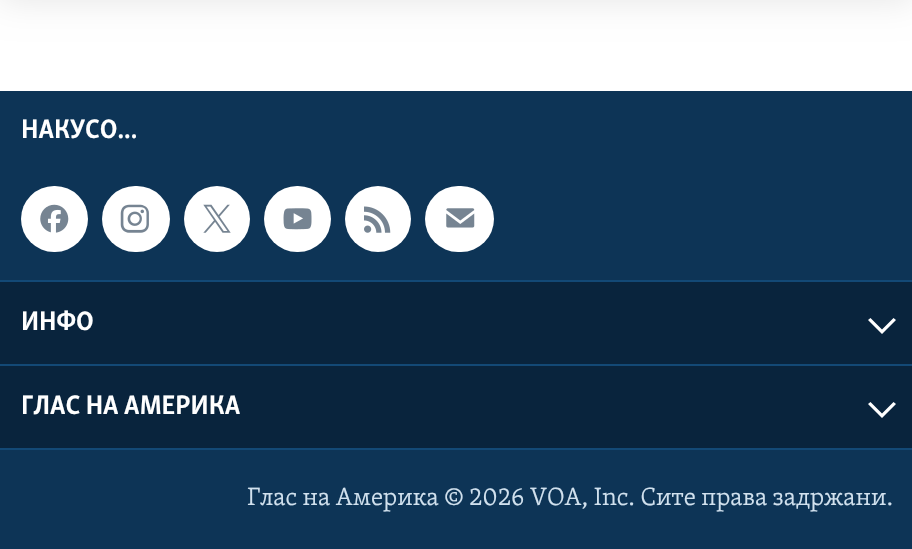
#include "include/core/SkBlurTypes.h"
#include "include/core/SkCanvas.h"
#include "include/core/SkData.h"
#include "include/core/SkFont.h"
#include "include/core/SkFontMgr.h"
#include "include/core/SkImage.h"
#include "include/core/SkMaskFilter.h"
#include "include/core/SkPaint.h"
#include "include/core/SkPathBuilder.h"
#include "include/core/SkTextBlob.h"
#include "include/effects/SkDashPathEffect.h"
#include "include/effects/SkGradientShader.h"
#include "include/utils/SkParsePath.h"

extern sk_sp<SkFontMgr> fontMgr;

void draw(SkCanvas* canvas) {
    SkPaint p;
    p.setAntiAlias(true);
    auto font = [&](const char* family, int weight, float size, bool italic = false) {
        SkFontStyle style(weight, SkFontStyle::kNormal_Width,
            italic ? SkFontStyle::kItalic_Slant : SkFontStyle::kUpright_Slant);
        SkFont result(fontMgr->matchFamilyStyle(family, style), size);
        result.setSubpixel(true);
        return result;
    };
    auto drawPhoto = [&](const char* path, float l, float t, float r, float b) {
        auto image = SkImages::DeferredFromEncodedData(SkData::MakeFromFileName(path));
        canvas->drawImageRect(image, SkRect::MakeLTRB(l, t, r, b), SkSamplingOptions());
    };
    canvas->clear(0xFFFFFFFF);
    p.setColor(0x1A000000);
    p.setMaskFilter(SkMaskFilter::MakeBlur(kNormal_SkBlurStyle, 17.5f));
    canvas->drawRect(SkRect::MakeLTRB(0, -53, 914, 0), p);
    p.setMaskFilter(nullptr);
    p.setColor(0xFF0D3456);
    canvas->drawRect(SkRect::MakeLTRB(0, 91, 912, 549), p);
    p.setColor(0xFF134976);
    canvas->drawRect(SkRect::MakeLTRB(0, 448, 912, 450), p);
    auto font1 = font("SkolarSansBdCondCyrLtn", 700, 27.5f);
    p.setColor(0xFFFFFFFF);
    canvas->drawString("НАКУСО...", 21, 138, font1, p);
    canvas->drawRoundRect(SkRect::MakeLTRB(21, 186, 88, 252), 33, 33, p);
    drawPhoto("media/1.png", 40, 204, 69, 233);
    canvas->drawRoundRect(SkRect::MakeLTRB(102, 186, 170, 252), 33, 33, p);
    drawPhoto("media/2.png", 120, 204, 149, 233);
    canvas->drawCircle(217, 219, 33, p);
    drawPhoto("media/3.png", 203, 204, 231, 233);
    canvas->drawRoundRect(SkRect::MakeLTRB(264, 186, 331, 252), 33, 33, p);
    drawPhoto("media/4.png", 283, 208, 312, 230);
    canvas->drawCircle(378, 219, 33, p);
    drawPhoto("media/5.png", 364, 206, 391, 233);
    canvas->drawRoundRect(SkRect::MakeLTRB(425, 186, 494, 252), 33, 33, p);
    drawPhoto("media/6.png", 446, 208, 475, 228);
    p.setColor(0xFF134976);
    canvas->drawRect(SkRect::MakeLTRB(0, 280, 912, 282), p);
    p.setColor(0xFF09243D);
    canvas->drawRect(SkRect::MakeLTRB(0, 282, 912, 364), p);
    p.setColor(0xFFFFFFFF);
    canvas->drawString("ИНФО", 21, 330, font1, p);
    canvas->drawPath(SkPathBuilder().moveTo(868, 320).lineTo(882, 334).lineTo(896, 320).lineTo(893.5f, 318).lineTo(882, 329.5f).lineTo(870.5f, 318).close().detach(), p);
    p.setColor(0xFF134976);
    canvas->drawRect(SkRect::MakeLTRB(0, 364, 912, 366), p);
    p.setColor(0xFF09243D);
    canvas->drawRect(SkRect::MakeLTRB(0, 366, 912, 448), p);
    p.setColor(0xFFFFFFFF);
    canvas->drawString("ГЛАС НА АМЕРИКА", 21, 414, font1, p);
    canvas->drawPath(SkPathBuilder().moveTo(868, 404).lineTo(882, 418).lineTo(896, 404).lineTo(893.5f, 402).lineTo(882, 413.5f).lineTo(870.5f, 402).close().detach(), p);
    auto font2 = font("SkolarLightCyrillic", 300, 25.6f);
    p.setColor(0xFFD1E1EE);
    canvas->drawString("Глас на Америка © 2026 VOA, Inc. Сите права задржани.", 247, 505, font2, p);
}
